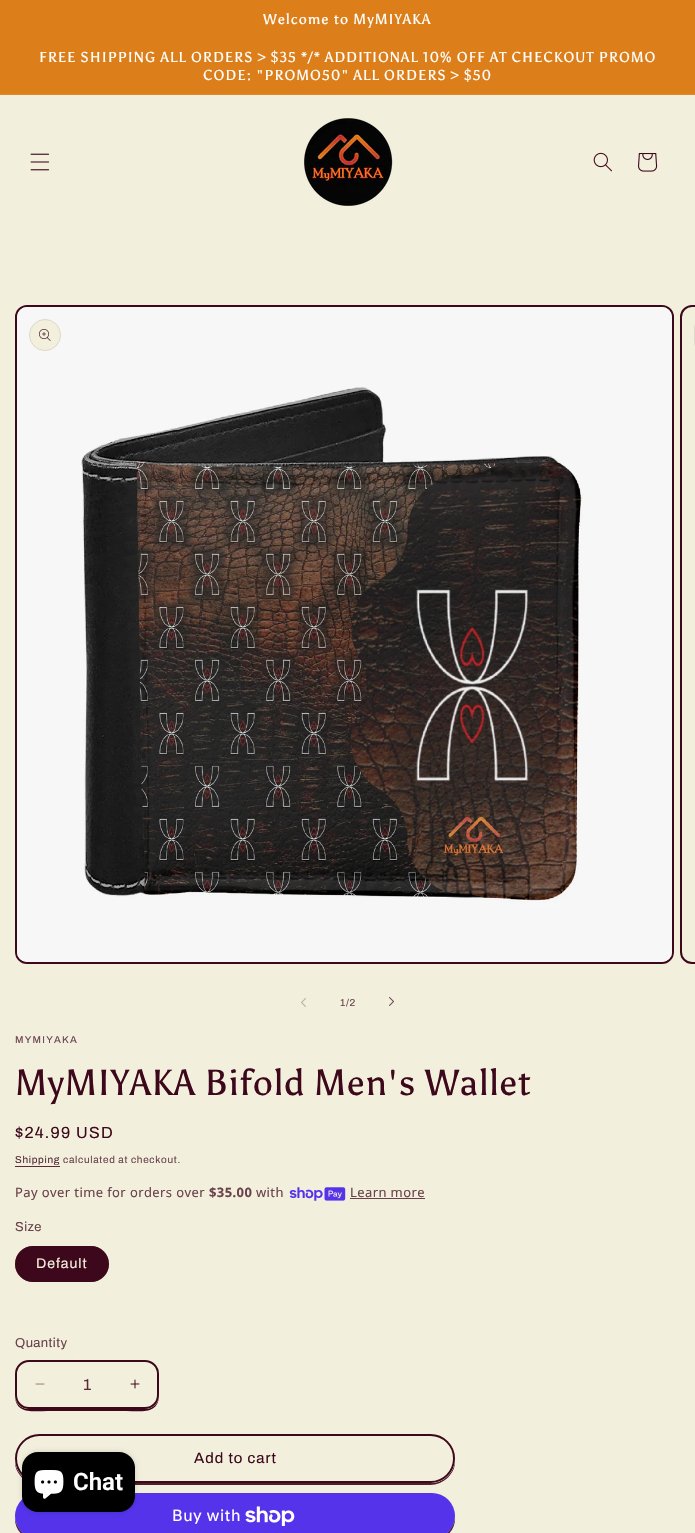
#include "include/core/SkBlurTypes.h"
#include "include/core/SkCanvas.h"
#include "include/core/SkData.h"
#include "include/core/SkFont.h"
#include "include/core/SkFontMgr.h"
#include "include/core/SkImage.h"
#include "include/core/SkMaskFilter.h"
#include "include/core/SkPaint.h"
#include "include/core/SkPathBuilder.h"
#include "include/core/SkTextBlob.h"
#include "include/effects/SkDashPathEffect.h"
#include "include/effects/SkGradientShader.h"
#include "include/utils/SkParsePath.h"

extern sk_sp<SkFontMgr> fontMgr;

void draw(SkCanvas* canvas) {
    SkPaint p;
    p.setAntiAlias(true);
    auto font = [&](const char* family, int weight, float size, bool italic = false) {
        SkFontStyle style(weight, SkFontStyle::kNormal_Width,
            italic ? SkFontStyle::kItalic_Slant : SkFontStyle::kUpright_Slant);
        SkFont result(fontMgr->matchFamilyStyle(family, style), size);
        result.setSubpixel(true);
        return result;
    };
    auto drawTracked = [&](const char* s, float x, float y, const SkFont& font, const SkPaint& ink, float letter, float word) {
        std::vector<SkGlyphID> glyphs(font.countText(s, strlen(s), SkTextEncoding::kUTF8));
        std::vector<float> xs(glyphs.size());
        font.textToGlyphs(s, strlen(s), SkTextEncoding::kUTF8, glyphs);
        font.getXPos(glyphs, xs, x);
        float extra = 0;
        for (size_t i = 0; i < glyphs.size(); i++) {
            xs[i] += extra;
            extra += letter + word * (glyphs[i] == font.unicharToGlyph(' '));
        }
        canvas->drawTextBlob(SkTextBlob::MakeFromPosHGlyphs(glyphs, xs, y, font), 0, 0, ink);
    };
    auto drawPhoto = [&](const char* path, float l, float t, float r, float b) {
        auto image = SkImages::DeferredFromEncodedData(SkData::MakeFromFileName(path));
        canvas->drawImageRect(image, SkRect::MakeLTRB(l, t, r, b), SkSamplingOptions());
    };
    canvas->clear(0xFFF2EFDD);
    p.setColor(0xFFDC7F1A);
    canvas->drawRect(SkRect::MakeLTRB(0, 0, 695, 94), p);
    auto font1 = font("Asul", 400, 14.4f);
    p.setColor(0xFFFFFFFF);
    drawTracked("Welcome to MyMIYAKA", 263, 24, font1, p, 1, 0);
    p.setColor(0xFFDF892C);
    canvas->drawRect(SkRect::MakeLTRB(0, 94, 695, 95), p);
    p.setColor(0xFFFFFFFF);
    drawTracked("FREE SHIPPING ALL ORDERS > $35 */* ADDITIONAL 10% OFF AT CHECKOUT PROMO", 39, 62, font1, p, 1, 0);
    drawTracked("CODE: \"PROMO50\" ALL ORDERS > $50", 203, 80, font1, p, 1, 0);
    drawPhoto("media/1.png", 30, 153, 50, 171);
    drawPhoto("media/2.png", 304, 118, 393, 206);
    drawPhoto("media/3.png", 593, 152, 612, 172);
    drawPhoto("media/4.png", 638, 153, 658, 172);
    p.setStyle(SkPaint::kStroke_Style);
    p.setStrokeWidth(2);
    p.setColor(0xFF3D081B);
    canvas->drawRoundRect(SkRect::MakeLTRB(16, 306, 673, 963), 11, 11, p);
    drawPhoto("media/5.png", 17, 307, 672, 962);
    p.setStyle(SkPaint::kFill_Style);
    p.setColor(0xFFF2EFDD);
    canvas->drawCircle(45, 335, 16, p);
    p.setStyle(SkPaint::kStroke_Style);
    p.setStrokeWidth(1);
    p.setColor(0x1A3D081B);
    canvas->drawCircle(45, 335, 15.5f, p);
    drawPhoto("media/6.png", 39, 329, 51, 341);
    p.setStrokeWidth(2);
    p.setColor(0xFF3D081B);
    canvas->drawRoundRect(SkRect::MakeLTRB(681, 306, 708, 963), 11, 11, p);
    p.setStrokeWidth(1);
    p.setColor(0xFFE0D8CA);
    canvas->drawRoundRect(SkRect::MakeLTRB(694.5f, 319.5f, 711.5f, 350.5f), 15.5f, 15.5f, p);
    drawPhoto("media/7.png", 301, 998, 306, 1007);
    auto font2 = font("Archivo", 400, 10);
    p.setStyle(SkPaint::kFill_Style);
    p.setColor(0xFF6A424C);
    drawTracked("1/2", 340, 1006, font2, p, 0.7f, 0);
    drawPhoto("media/8.png", 389, 997, 394, 1006);
    drawTracked("MYMIYAKA", 15, 1043, font2, p, 1.25f, 0);
    auto font3 = font("Asul", 400, 36);
    p.setColor(0xFF3D081B);
    drawTracked("MyMIYAKA Bifold Men's Wallet", 15, 1095, font3, p, 0.75f, 0);
    auto font4 = font("Archivo", 400, 16);
    drawTracked("$24.99 USD", 15, 1138, font4, p, 1.25f, 0);
    p.setColor(0xFF582B38);
    drawTracked("Shipping", 15, 1163, font2, p, 0.7f, 0);
    canvas->drawRect(SkRect::MakeLTRB(15, 1166, 60, 1167), p);
    p.setColor(0xFF6A424C);
    drawTracked("calculated at checkout.", 63, 1163, font2, p, 0.7f, 0);
    auto font5 = font("Noto Sans", 400, 13);
    drawTracked("Pay over time for orders over", 15, 1197, font5, p, 0.4f, 0);
    auto font6 = font("Noto Sans", 700, 13);
    drawTracked("$35.00", 209, 1197, font6, p, 0.4f, 0);
    drawTracked("with", 256, 1197, font5, p, 0.4f, 0);
    drawPhoto("media/9.png", 289, 1187, 346, 1201);
    drawTracked("Learn more", 350, 1197, font5, p, 0.4f, 0);
    canvas->drawRect(SkRect::MakeLTRB(350, 1198, 425, 1199), p);
    auto font7 = font("Archivo", 400, 13);
    drawTracked("Size", 15, 1231, font7, p, 0.4f, 0);
    p.setColor(0xFF3D081B);
    canvas->drawRoundRect(SkRect::MakeLTRB(15, 1246, 109, 1282), 18, 18, p);
    p.setStyle(SkPaint::kStroke_Style);
    p.setColor(0x8C3D081B);
    canvas->drawRoundRect(SkRect::MakeLTRB(15.5f, 1246.5f, 108.5f, 1281.5f), 17.5f, 17.5f, p);
    auto font8 = font("Archivo", 400, 14);
    p.setStyle(SkPaint::kFill_Style);
    p.setColor(0xFFF2EFDD);
    drawTracked("Default", 36, 1268, font8, p, 1, 0);
    p.setColor(0xFF6A424C);
    drawTracked("Quantity", 15, 1347, font7, p, 0.4f, 0);
    p.setColor(0xFF3D081B);
    canvas->drawPath(SkPathBuilder().moveTo(15, 1395).cubicTo(15, 1415, 34, 1411, 48, 1411).lineTo(126, 1411).cubicTo(140, 1411, 159, 1415, 159, 1395).cubicTo(159, 1403, 153, 1409, 145, 1409).lineTo(29, 1409).cubicTo(21, 1409, 15, 1403, 15, 1395).close().detach(), p);
    p.setColor(0xFFF2EFDD);
    canvas->drawRoundRect(SkRect::MakeLTRB(15, 1360, 159, 1409), 14, 14, p);
    drawPhoto("media/10.png", 35, 1383, 45, 1385);
    drawPhoto("media/11.png", 130, 1379, 140, 1389);
    p.setStyle(SkPaint::kStroke_Style);
    p.setStrokeWidth(2);
    p.setColor(0xFF3D081B);
    canvas->drawRoundRect(SkRect::MakeLTRB(16, 1361, 158, 1408), 13, 13, p);
    p.setStyle(SkPaint::kFill_Style);
    p.setColor(0xFF582B38);
    canvas->drawString("1", 83, 1390, font4, p);
    p.setColor(0xFF4F1F2E);
    canvas->drawPath(SkPathBuilder().moveTo(15, 1460).cubicTo(14, 1473, 26, 1485, 40, 1485).lineTo(430, 1485).cubicTo(444, 1485, 456, 1473, 455, 1460).cubicTo(454, 1473, 444, 1483, 430, 1483).lineTo(40, 1483).cubicTo(26, 1483, 16, 1473, 15, 1460).close().detach(), p);
    p.setColor(0xFFF2EFDD);
    canvas->drawRoundRect(SkRect::MakeLTRB(15, 1434, 455, 1483), 24.5f, 24.5f, p);
    p.setStyle(SkPaint::kStroke_Style);
    canvas->drawRoundRect(SkRect::MakeLTRB(16, 1435, 454, 1482), 23.5f, 23.5f, p);
    p.setColor(0xFF3D081B);
    canvas->drawRoundRect(SkRect::MakeLTRB(16, 1435, 454, 1482), 23.5f, 23.5f, p);
    auto font9 = font("Archivo", 400, 15);
    p.setStyle(SkPaint::kFill_Style);
    drawTracked("Add to cart", 194, 1463, font9, p, 1, 0);
    p.setColor(0xFF4F1F2E);
    canvas->drawPath(SkPathBuilder().moveTo(15, 1517).cubicTo(14, 1530, 25, 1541, 38, 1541).lineTo(432, 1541).cubicTo(445, 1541, 456, 1530, 455, 1517).cubicTo(454, 1529, 444, 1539, 432, 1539).lineTo(38, 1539).cubicTo(26, 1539, 16, 1529, 15, 1517).close().detach(), p);
    p.setColor(0xFF5433EB);
    canvas->drawRoundRect(SkRect::MakeLTRB(15, 1493, 455, 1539), 23, 23, p);
    auto font10 = font("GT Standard", 400, 16);
    p.setColor(0xFFFFFFFF);
    drawTracked("Buy with", 172, 1521, font10, p, 0.5f, 0);
    drawPhoto("media/12.png", 245, 1506, 295, 1526);
    p.setColor(0x26000000);
    p.setMaskFilter(SkMaskFilter::MakeBlur(kNormal_SkBlurStyle, 2.5f));
    canvas->drawRoundRect(SkRect::MakeLTRB(22, 1452, 135, 1512), 16, 16, p);
    p.setMaskFilter(nullptr);
    p.setColor(0xFF000000);
    canvas->drawRoundRect(SkRect::MakeLTRB(22, 1452, 135, 1512), 16, 16, p);
    drawPhoto("media/13.png", 34, 1470, 64, 1499);
    auto font11 = font("Roboto", 600, 24);
    p.setColor(0xFFFFFFFF);
    canvas->drawString("Chat", 73, 1490, font11, p);
}
